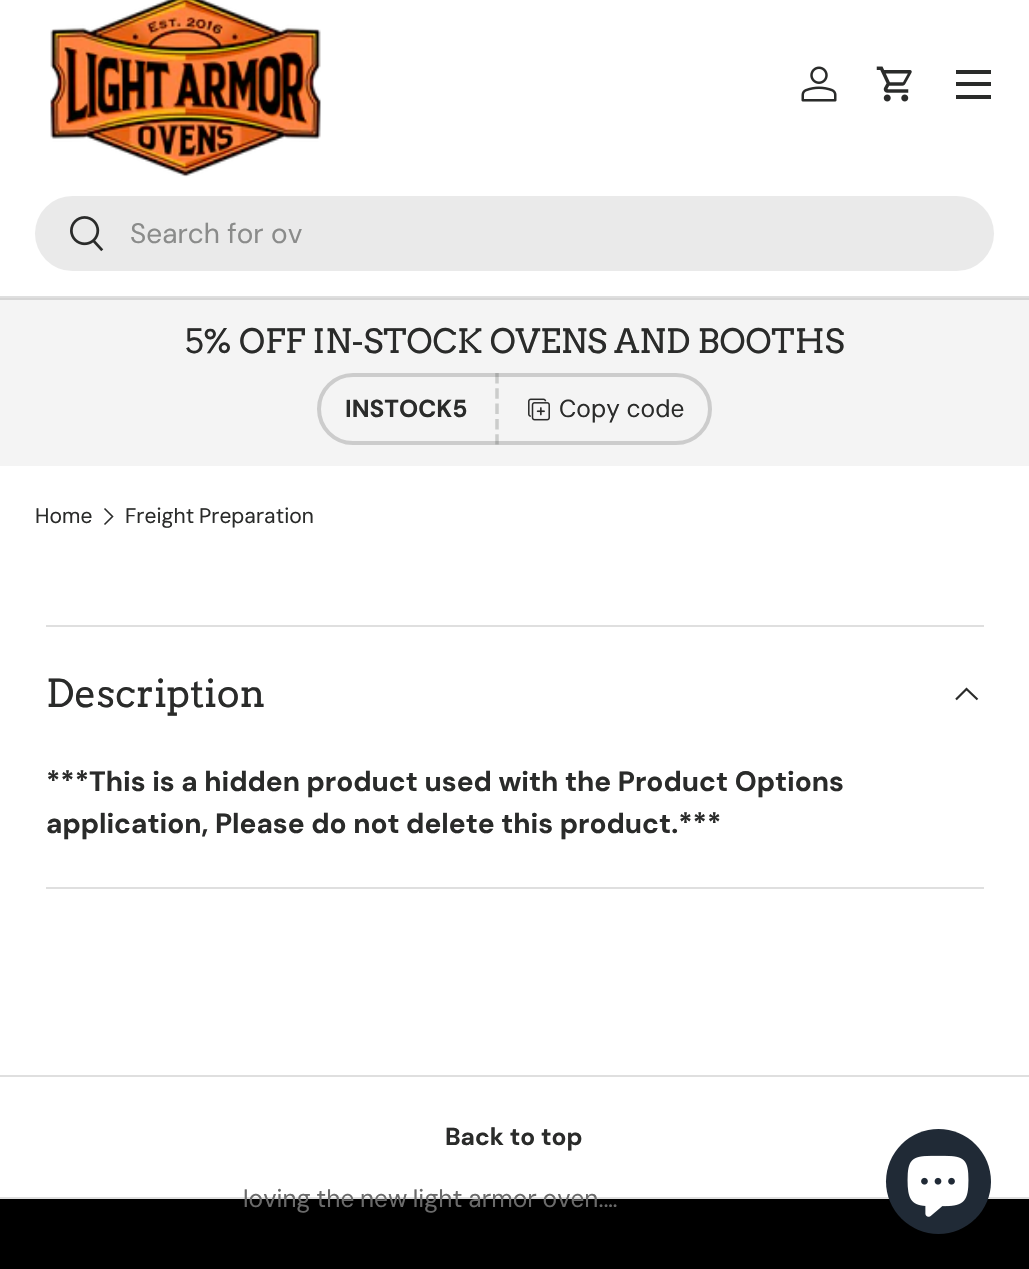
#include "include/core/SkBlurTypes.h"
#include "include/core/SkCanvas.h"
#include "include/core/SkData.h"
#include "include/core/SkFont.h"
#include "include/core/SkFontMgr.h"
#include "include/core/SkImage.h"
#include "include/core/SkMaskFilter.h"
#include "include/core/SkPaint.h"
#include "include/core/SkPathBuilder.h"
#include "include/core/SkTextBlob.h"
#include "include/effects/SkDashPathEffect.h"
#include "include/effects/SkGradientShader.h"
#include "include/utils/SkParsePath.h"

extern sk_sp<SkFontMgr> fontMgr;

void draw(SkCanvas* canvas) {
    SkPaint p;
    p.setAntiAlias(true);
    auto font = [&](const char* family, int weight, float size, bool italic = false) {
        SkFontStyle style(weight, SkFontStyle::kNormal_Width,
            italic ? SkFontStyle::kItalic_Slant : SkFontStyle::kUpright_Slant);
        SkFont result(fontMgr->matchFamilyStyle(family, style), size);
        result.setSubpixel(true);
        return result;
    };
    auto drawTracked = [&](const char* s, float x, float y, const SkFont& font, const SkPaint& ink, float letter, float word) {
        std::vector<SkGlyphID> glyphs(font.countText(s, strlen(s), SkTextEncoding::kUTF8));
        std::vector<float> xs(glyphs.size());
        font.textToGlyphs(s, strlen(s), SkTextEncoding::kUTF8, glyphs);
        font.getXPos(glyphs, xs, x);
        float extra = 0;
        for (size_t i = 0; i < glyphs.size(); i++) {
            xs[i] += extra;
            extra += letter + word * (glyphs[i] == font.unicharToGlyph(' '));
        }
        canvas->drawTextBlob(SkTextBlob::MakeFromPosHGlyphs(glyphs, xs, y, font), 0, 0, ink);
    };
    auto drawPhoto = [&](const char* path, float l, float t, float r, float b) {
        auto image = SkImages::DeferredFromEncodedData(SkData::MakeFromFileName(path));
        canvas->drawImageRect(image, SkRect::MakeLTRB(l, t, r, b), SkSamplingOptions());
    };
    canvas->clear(0xFFFFFFFF);
    p.setColor(0xFFDFDFDF);
    canvas->drawRect(SkRect::MakeLTRB(0, 296, 1029, 298), p);
    drawPhoto("media/1.png", 50, 0, 321, 177);
    drawPhoto("media/2.png", 801, 66, 837, 102);
    drawPhoto("media/3.png", 876, 66, 912, 102);
    {
        const struct { float l, t, r, b; SkColor color; } items[] = {
            {956, 70, 991, 74, 0xFF2A2B2A},
            {956, 95, 991, 99, 0xFF2A2B2A},
            {956, 82, 991, 86, 0xFF2A2B2A},
        };
        for (auto [l, t, r, b, color] : items) {
            p.setColor(color);
            canvas->drawRect(SkRect::MakeLTRB(l, t, r, b), p);
        }
    }
    p.setColor(0xFFEAEAEA);
    canvas->drawRoundRect(SkRect::MakeLTRB(35, 196, 994, 271), 37.5f, 37.5f, p);
    drawPhoto("media/4.png", 70, 216, 104, 252);
    auto font1 = font("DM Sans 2", 400, 28);
    p.setColor(0xFF8A8B8A);
    canvas->drawString("Search for ov", 130, 243, font1, p);
    p.setColor(0xFFF4F4F4);
    canvas->drawRect(SkRect::MakeLTRB(0, 300, 1029, 466), p);
    p.setColor(0xFFD6D6D6);
    canvas->drawRect(SkRect::MakeLTRB(0, 298, 1029, 300), p);
    auto font2 = font("Arvo", 400, 33.3f);
    p.setColor(0xFF2A2B2A);
    canvas->drawString("5% OFF IN-STOCK OVENS AND BOOTHS", 185, 353, font2, p);
    p.setStyle(SkPaint::kStroke_Style);
    p.setStrokeWidth(4);
    p.setColor(0xFFCCCCCC);
    canvas->drawRoundRect(SkRect::MakeLTRB(319, 375, 710, 443), 34, 34, p);
    auto font3 = font("DM Sans", 700, 24.5f);
    p.setStyle(SkPaint::kFill_Style);
    p.setColor(0xFF2A2B2A);
    canvas->drawString("INSTOCK5", 345, 417, font3, p);
    p.setStyle(SkPaint::kStroke_Style);
    p.setStrokeWidth(3.5f);
    p.setColor(0x332A2B2A);
    p.setPathEffect(SkDashPathEffect::Make({{10.5f, 4.81f}}, 0));
    canvas->drawPath(SkPathBuilder().moveTo(497, 373).lineTo(497, 444.5f).detach(), p);
    p.setPathEffect(nullptr);
    drawPhoto("media/5.png", 528, 398, 550, 421);
    auto font4 = font("DM Sans", 400, 24.5f);
    p.setStyle(SkPaint::kFill_Style);
    p.setColor(0xFF2A2B2A);
    canvas->drawString("Copy code", 559, 417, font4, p);
    auto font5 = font("DM Sans", 400, 21);
    canvas->drawString("Home", 35, 523, font5, p);
    p.setStyle(SkPaint::kStroke_Style);
    p.setStrokeWidth(1.6f);
    canvas->drawPath(SkPathBuilder().moveTo(104.5f, 508.5f).lineTo(112.5f, 516.5f).lineTo(104.5f, 524.5f).detach(), p);
    p.setStyle(SkPaint::kFill_Style);
    drawTracked("Freight Preparation", 125, 523, font5, p, 0, -1);
    p.setColor(0xFFDFDFDF);
    canvas->drawRect(SkRect::MakeLTRB(46, 625, 984, 627), p);
    canvas->drawRect(SkRect::MakeLTRB(46, 887, 984, 889), p);
    auto font6 = font("Arvo", 400, 38.5f);
    p.setColor(0xFF2A2B2A);
    canvas->drawString("Description", 46, 707, font6, p);
    p.setStyle(SkPaint::kStroke_Style);
    p.setStrokeWidth(2.2f);
    canvas->drawPath(SkPathBuilder().moveTo(977.5f, 699.5f).lineTo(966.5f, 689).lineTo(956, 699.5f).detach(), p);
    auto font7 = font("DM Sans 2", 700, 28);
    p.setStyle(SkPaint::kFill_Style);
    canvas->drawString("***This is a hidden product used with the Product Options", 46, 791, font7, p);
    canvas->drawString("application, Please do not delete this product.***", 46, 833, font7, p);
    p.setColor(0xFFDFDFDF);
    canvas->drawRect(SkRect::MakeLTRB(0, 1075, 1029, 1077), p);
    canvas->drawRect(SkRect::MakeLTRB(0, 1197, 1029, 1199), p);
    p.setColor(0xFF2A2B2A);
    canvas->drawString("Back to top", 445, 1145, font3, p);
    p.setColor(0xFF000000);
    canvas->drawRect(SkRect::MakeLTRB(0, 1199, 1029, 1269), p);
    p.setColor(0xFF202A36);
    canvas->drawCircle(938.5f, 1181.5f, 52.5f, p);
    drawPhoto("media/6.png", 907, 1155, 969, 1217);
    p.setColor(0xFF6A6A6A);
    drawTracked("loving the new light armor oven.…", 243, 1207, font4, p, 0, -1);
}
